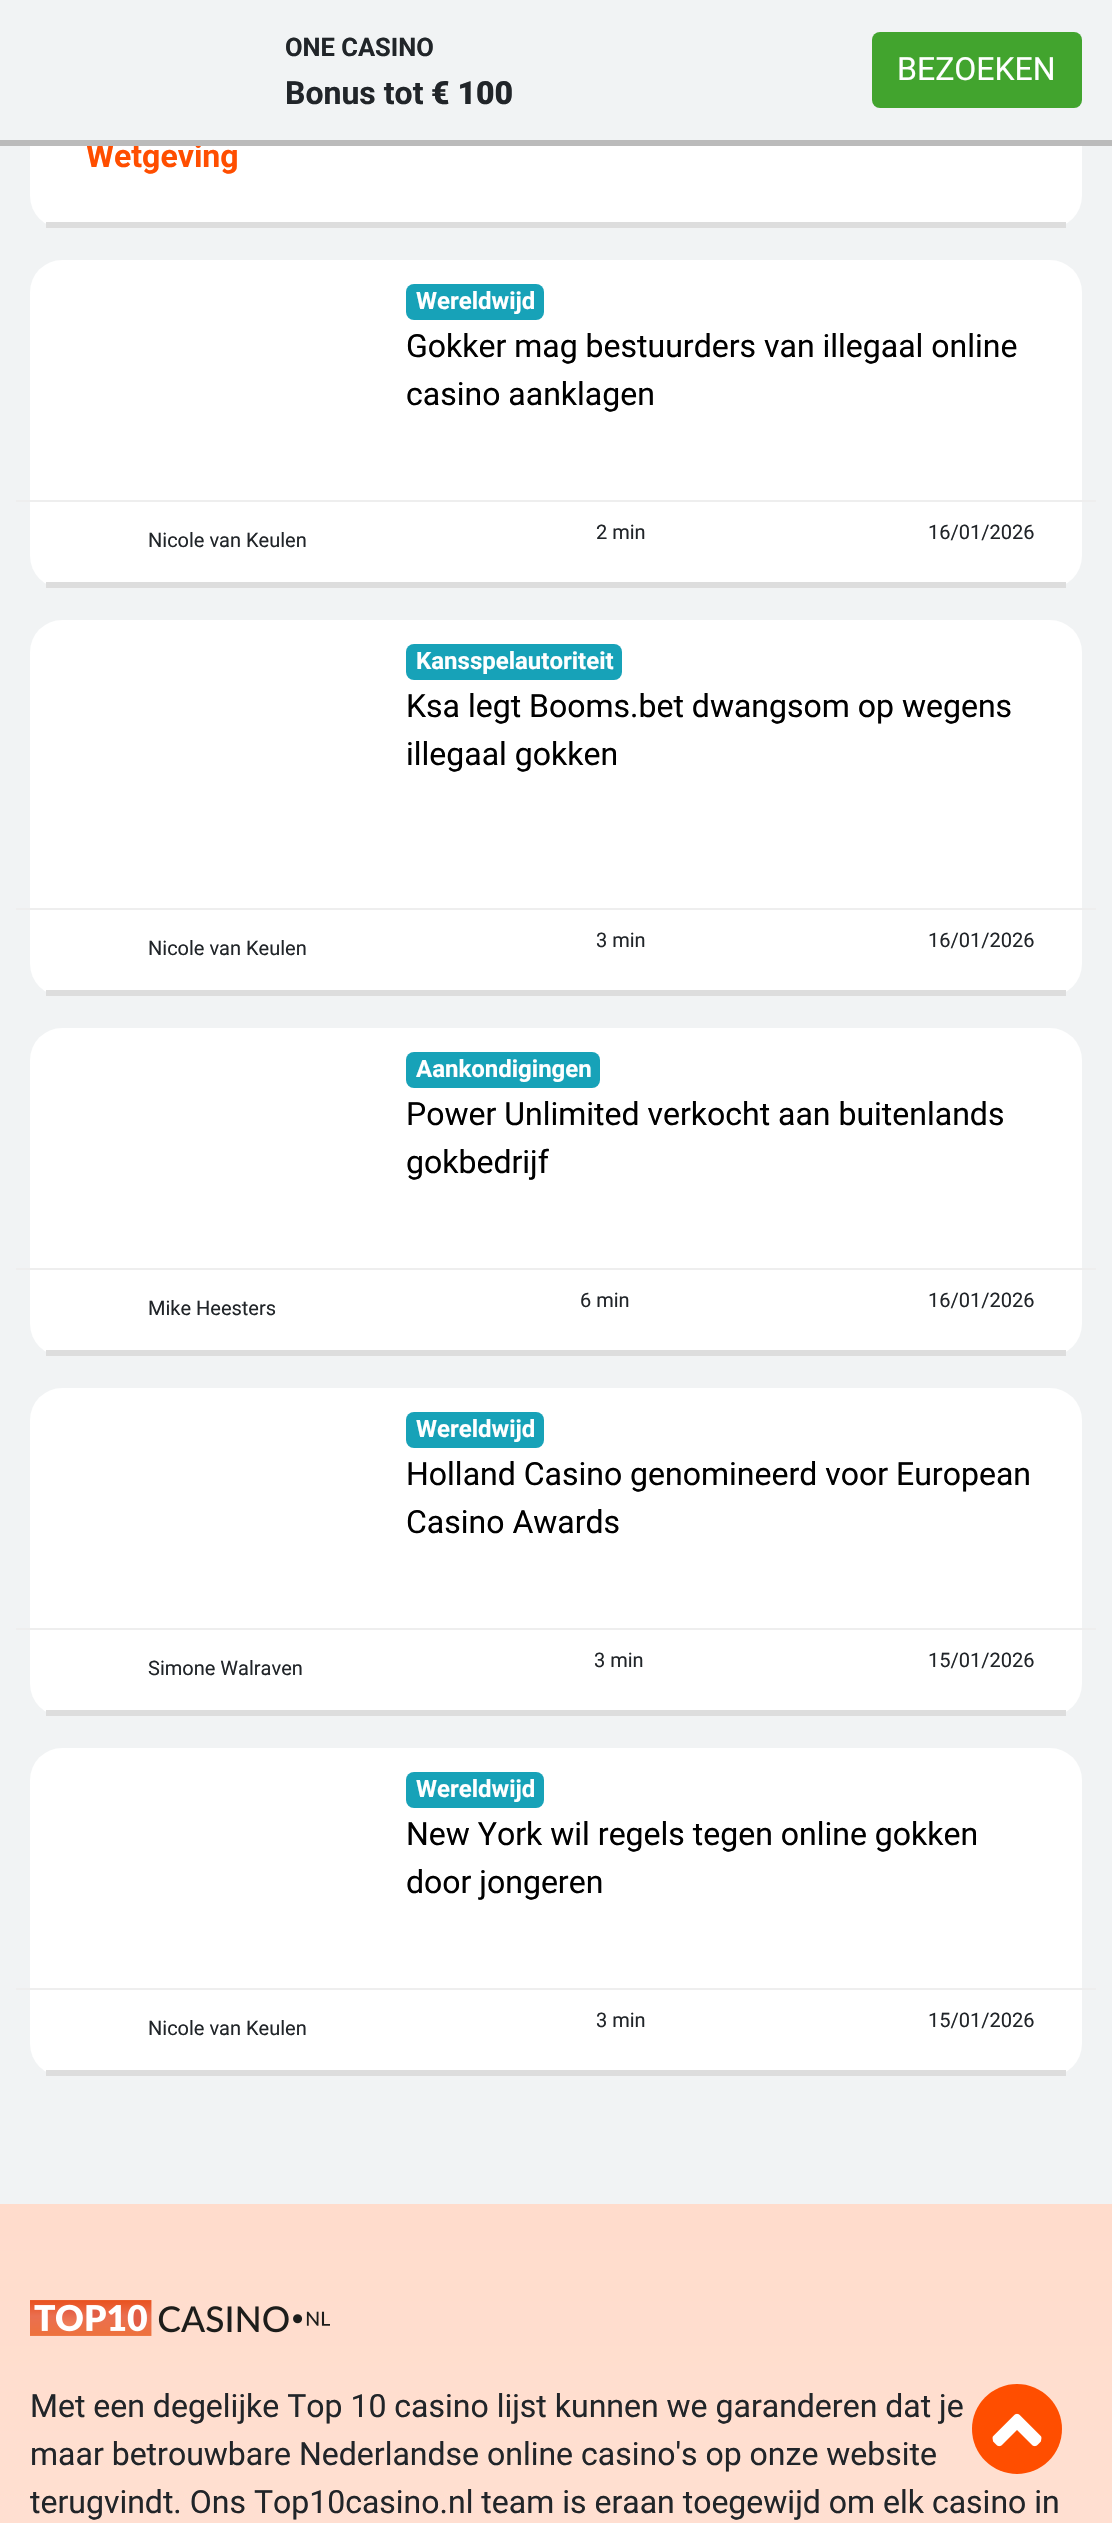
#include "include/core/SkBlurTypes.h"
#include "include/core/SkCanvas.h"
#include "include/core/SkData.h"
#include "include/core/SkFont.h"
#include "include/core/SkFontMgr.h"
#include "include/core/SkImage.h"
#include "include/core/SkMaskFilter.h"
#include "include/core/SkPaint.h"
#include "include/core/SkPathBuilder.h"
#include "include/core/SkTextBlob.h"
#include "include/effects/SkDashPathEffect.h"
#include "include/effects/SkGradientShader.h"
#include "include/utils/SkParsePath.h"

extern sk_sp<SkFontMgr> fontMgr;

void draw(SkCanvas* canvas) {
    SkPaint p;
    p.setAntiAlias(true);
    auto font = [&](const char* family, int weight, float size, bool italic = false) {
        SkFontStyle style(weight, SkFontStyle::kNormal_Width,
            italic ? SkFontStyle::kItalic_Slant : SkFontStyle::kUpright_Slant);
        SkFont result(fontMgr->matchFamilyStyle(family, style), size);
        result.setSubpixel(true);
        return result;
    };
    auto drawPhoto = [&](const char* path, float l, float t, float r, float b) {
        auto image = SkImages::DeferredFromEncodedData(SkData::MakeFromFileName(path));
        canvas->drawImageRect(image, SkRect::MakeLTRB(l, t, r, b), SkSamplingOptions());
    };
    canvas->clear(0xFFF1F3F4);
    p.setColor(0xFFFFFFFF);
    canvas->drawRoundRect(SkRect::MakeLTRB(30, -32, 1082, 228), 32, 32, p);
    p.setColor(0xFFF1F3F4);
    canvas->drawRect(SkRect::MakeLTRB(30, 0, 1082, 140), p);
    auto font1 = font("Roboto", 700, 32);
    p.setColor(0xFFFF4E00);
    canvas->drawString("Wetgeving", 86, 167, font1, p);
    p.setColor(0xFFBBBBBB);
    canvas->drawRect(SkRect::MakeLTRB(0, 140, 1112, 146), p);
    auto font2 = font("Roboto", 700, 25.5f);
    p.setColor(0xFF212529);
    canvas->drawString("ONE CASINO", 285, 56, font2, p);
    canvas->drawString("Bonus tot", 285, 104, font1, p);
    auto font3 = font("Roboto", 900, 32);
    canvas->drawString("€ 100", 431, 104, font3, p);
    p.setColor(0xFF42A42E);
    canvas->drawRoundRect(SkRect::MakeLTRB(872, 32, 1082, 108), 8, 8, p);
    auto font4 = font("Roboto", 400, 32);
    p.setColor(0xFFFFFFFF);
    canvas->drawString("BEZOEKEN", 897, 80, font4, p);
    p.setColor(0xFFDDDDDD);
    canvas->drawRect(SkRect::MakeLTRB(46, 222, 1066, 228), p);
    p.setColor(0xFFFFFFFF);
    canvas->drawRoundRect(SkRect::MakeLTRB(30, 260, 1082, 588), 32, 32, p);
    p.setColor(0xFFDDDDDD);
    canvas->drawRect(SkRect::MakeLTRB(46, 582, 1066, 588), p);
    p.setColor(0xFF17A2B8);
    canvas->drawRoundRect(SkRect::MakeLTRB(406, 284, 544, 320), 8, 8, p);
    auto font5 = font("Roboto", 700, 24);
    p.setColor(0xFFFFFFFF);
    canvas->drawString("Wereldwijd", 416, 309, font5, p);
    p.setColor(0xFF000000);
    canvas->drawString("Gokker mag bestuurders van illegaal online", 406, 357, font4, p);
    canvas->drawString("casino aanklagen", 406, 405, font4, p);
    p.setColor(0xFFEEEEEE);
    canvas->drawRect(SkRect::MakeLTRB(16, 500, 1096, 502), p);
    auto font6 = font("Roboto", 400, 20);
    p.setColor(0xFF212529);
    {
        const struct { const char* s; float x, y; } items[] = {
            {"Nicole van Keulen", 148, 547},
            {"2 min", 596, 539},
            {"16/01/2026", 928, 539},
        };
        for (auto [s, x, y] : items) {
            canvas->drawString(s, x, y, font6, p);
        }
    }
    p.setColor(0xFFFFFFFF);
    canvas->drawRoundRect(SkRect::MakeLTRB(30, 620, 1082, 996), 32, 32, p);
    p.setColor(0xFFDDDDDD);
    canvas->drawRect(SkRect::MakeLTRB(46, 990, 1066, 996), p);
    p.setColor(0xFF17A2B8);
    canvas->drawRoundRect(SkRect::MakeLTRB(406, 644, 622, 680), 8, 8, p);
    p.setColor(0xFFFFFFFF);
    canvas->drawString("Kansspelautoriteit", 416, 669, font5, p);
    p.setColor(0xFF000000);
    canvas->drawString("Ksa legt Booms.bet dwangsom op wegens", 406, 717, font4, p);
    canvas->drawString("illegaal gokken", 406, 765, font4, p);
    p.setColor(0xFFEEEEEE);
    canvas->drawRect(SkRect::MakeLTRB(16, 908, 1096, 910), p);
    p.setColor(0xFF212529);
    {
        const struct { const char* s; float x, y; } items[] = {
            {"Nicole van Keulen", 148, 955},
            {"3 min", 596, 947},
            {"16/01/2026", 928, 947},
        };
        for (auto [s, x, y] : items) {
            canvas->drawString(s, x, y, font6, p);
        }
    }
    p.setColor(0xFFFFFFFF);
    canvas->drawRoundRect(SkRect::MakeLTRB(30, 1028, 1082, 1356), 32, 32, p);
    p.setColor(0xFFDDDDDD);
    canvas->drawRect(SkRect::MakeLTRB(46, 1350, 1066, 1356), p);
    p.setColor(0xFF17A2B8);
    canvas->drawRoundRect(SkRect::MakeLTRB(406, 1052, 600, 1088), 8, 8, p);
    p.setColor(0xFFFFFFFF);
    canvas->drawString("Aankondigingen", 416, 1077, font5, p);
    p.setColor(0xFF000000);
    canvas->drawString("Power Unlimited verkocht aan buitenlands", 406, 1125, font4, p);
    canvas->drawString("gokbedrijf", 406, 1173, font4, p);
    p.setColor(0xFFEEEEEE);
    canvas->drawRect(SkRect::MakeLTRB(16, 1268, 1096, 1270), p);
    p.setColor(0xFF212529);
    {
        const struct { const char* s; float x, y; } items[] = {
            {"Mike Heesters", 148, 1315},
            {"6 min", 580, 1307},
            {"16/01/2026", 928, 1307},
        };
        for (auto [s, x, y] : items) {
            canvas->drawString(s, x, y, font6, p);
        }
    }
    p.setColor(0xFFFFFFFF);
    canvas->drawRoundRect(SkRect::MakeLTRB(30, 1388, 1082, 1716), 32, 32, p);
    p.setColor(0xFFDDDDDD);
    canvas->drawRect(SkRect::MakeLTRB(46, 1710, 1066, 1716), p);
    p.setColor(0xFF17A2B8);
    canvas->drawRoundRect(SkRect::MakeLTRB(406, 1412, 544, 1448), 8, 8, p);
    p.setColor(0xFFFFFFFF);
    canvas->drawString("Wereldwijd", 416, 1437, font5, p);
    p.setColor(0xFF000000);
    canvas->drawString("Holland Casino genomineerd voor European", 406, 1485, font4, p);
    canvas->drawString("Casino Awards", 406, 1533, font4, p);
    p.setColor(0xFFEEEEEE);
    canvas->drawRect(SkRect::MakeLTRB(16, 1628, 1096, 1630), p);
    p.setColor(0xFF212529);
    {
        const struct { const char* s; float x, y; } items[] = {
            {"Simone Walraven", 148, 1675},
            {"3 min", 594, 1667},
            {"15/01/2026", 928, 1667},
        };
        for (auto [s, x, y] : items) {
            canvas->drawString(s, x, y, font6, p);
        }
    }
    p.setColor(0xFFFFFFFF);
    canvas->drawRoundRect(SkRect::MakeLTRB(30, 1748, 1082, 2076), 32, 32, p);
    p.setColor(0xFFDDDDDD);
    canvas->drawRect(SkRect::MakeLTRB(46, 2070, 1066, 2076), p);
    p.setColor(0xFF17A2B8);
    canvas->drawRoundRect(SkRect::MakeLTRB(406, 1772, 544, 1808), 8, 8, p);
    p.setColor(0xFFFFFFFF);
    canvas->drawString("Wereldwijd", 416, 1797, font5, p);
    p.setColor(0xFF000000);
    canvas->drawString("New York wil regels tegen online gokken", 406, 1845, font4, p);
    canvas->drawString("door jongeren", 406, 1893, font4, p);
    p.setColor(0xFFEEEEEE);
    canvas->drawRect(SkRect::MakeLTRB(16, 1988, 1096, 1990), p);
    p.setColor(0xFF212529);
    {
        const struct { const char* s; float x, y; } items[] = {
            {"Nicole van Keulen", 148, 2035},
            {"3 min", 596, 2027},
            {"15/01/2026", 928, 2027},
        };
        for (auto [s, x, y] : items) {
            canvas->drawString(s, x, y, font6, p);
        }
    }
    {
        const SkColor colors[] = {0xFFFFDCCC, 0xFFFFFFFF};
        const float stops[] = {0, 1};
        const SkPoint ends[] = {{556, 2204}, {556, 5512}};
        p.setShader(SkGradientShader::MakeLinear(ends, colors, stops, 2, SkTileMode::kClamp));
        p.setAlpha(255);
    }
    canvas->drawRect(SkRect::MakeLTRB(0, 2204, 1112, 2523), p);
    p.setShader(nullptr);
    p.setColor(0xFFFF4E00);
    canvas->drawCircle(1017, 2429, 45, p);
    drawPhoto("media/1.png", 992, 2413, 1042, 2447);
    drawPhoto("media/2.png", 30, 2300, 330, 2336);
    p.setColor(0xFF212529);
    {
        const struct { const char* s; float x, y; } items[] = {
            {"Met een degelijke Top 10 casino lijst kunnen we garanderen dat je", 30, 2417},
            {"maar betrouwbare Nederlandse online casino's op onze website", 30, 2465},
            {"terugvindt. Ons Top10casino.nl team is eraan toegewijd om elk casino in", 30, 2513},
        };
        for (auto [s, x, y] : items) {
            canvas->drawString(s, x, y, font4, p);
        }
    }
}
